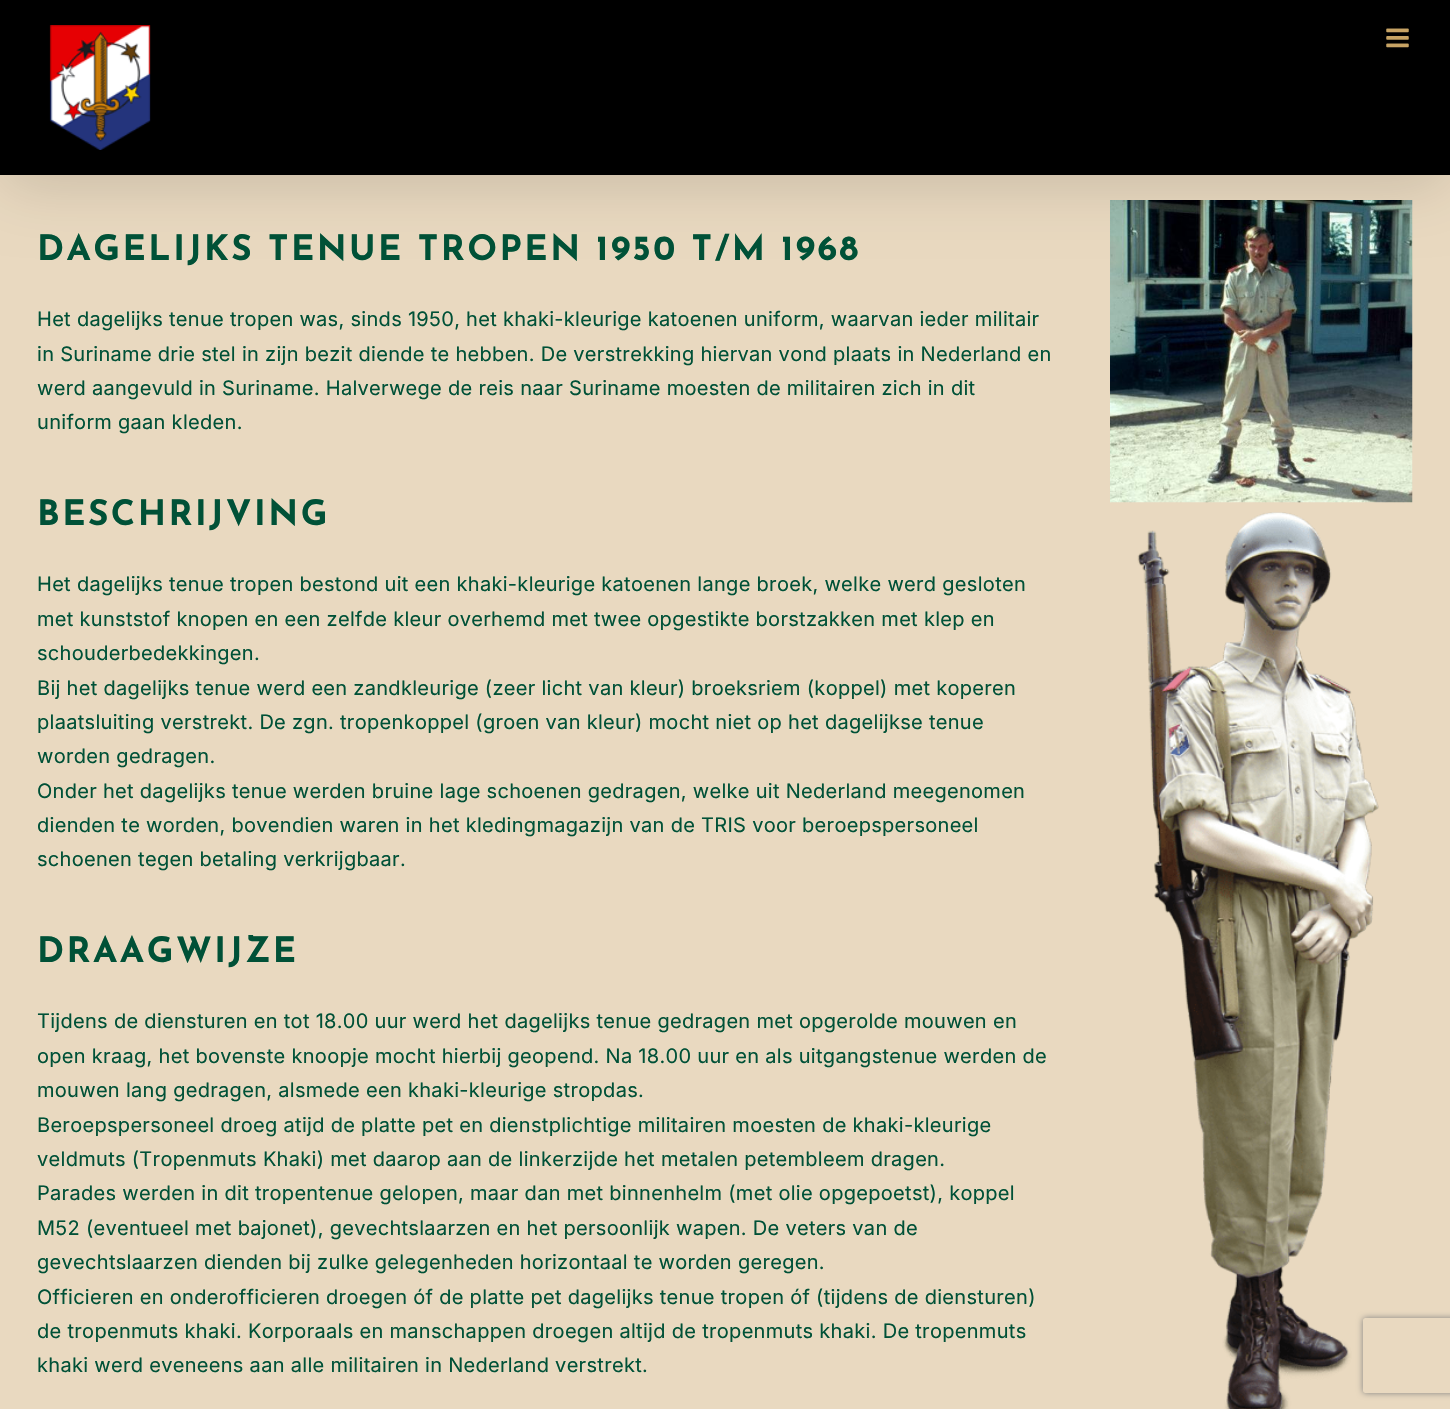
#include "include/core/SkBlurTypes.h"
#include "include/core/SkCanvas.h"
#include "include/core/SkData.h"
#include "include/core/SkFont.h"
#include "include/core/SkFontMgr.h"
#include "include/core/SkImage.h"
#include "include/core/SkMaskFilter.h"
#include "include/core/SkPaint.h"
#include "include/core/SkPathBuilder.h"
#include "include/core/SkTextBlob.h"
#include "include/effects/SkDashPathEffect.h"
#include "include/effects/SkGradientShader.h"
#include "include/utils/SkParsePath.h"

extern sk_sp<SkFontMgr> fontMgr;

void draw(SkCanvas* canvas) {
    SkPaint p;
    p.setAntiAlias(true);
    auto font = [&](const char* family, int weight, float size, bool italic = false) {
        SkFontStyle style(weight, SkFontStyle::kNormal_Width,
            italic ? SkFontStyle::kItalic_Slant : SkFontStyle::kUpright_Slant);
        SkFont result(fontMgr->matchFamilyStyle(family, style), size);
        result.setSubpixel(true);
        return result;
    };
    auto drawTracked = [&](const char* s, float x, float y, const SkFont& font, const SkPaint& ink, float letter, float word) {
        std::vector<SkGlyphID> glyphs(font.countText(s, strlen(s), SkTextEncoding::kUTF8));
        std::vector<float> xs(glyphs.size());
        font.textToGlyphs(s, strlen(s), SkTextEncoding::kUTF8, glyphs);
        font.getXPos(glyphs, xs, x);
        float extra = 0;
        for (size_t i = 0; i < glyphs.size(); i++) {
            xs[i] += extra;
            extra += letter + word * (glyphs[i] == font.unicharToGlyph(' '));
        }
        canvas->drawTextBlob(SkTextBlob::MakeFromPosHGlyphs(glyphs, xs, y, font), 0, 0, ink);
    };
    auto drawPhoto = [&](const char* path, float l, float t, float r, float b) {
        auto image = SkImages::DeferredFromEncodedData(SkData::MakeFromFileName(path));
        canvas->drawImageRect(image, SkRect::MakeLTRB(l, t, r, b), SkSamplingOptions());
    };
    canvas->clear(0xFFE9D9C0);
    drawPhoto("media/3.png", 1110, 200, 1413, 503);
    p.setColor(0x24000000);
    p.setMaskFilter(SkMaskFilter::MakeBlur(kNormal_SkBlurStyle, 31));
    canvas->drawRect(SkRect::MakeLTRB(3, 15, 1448, 185), p);
    p.setMaskFilter(nullptr);
    p.setColor(0xFF000000);
    canvas->drawRect(SkRect::MakeLTRB(0, 0, 1450, 175), p);
    drawPhoto("media/1.png", 49, 25, 151, 150);
    drawPhoto("media/2.png", 1386, 28, 1409, 48);
    auto font1 = font("Josefin Sans", 700, 35);
    p.setColor(0xFF005137);
    drawTracked("DAGELIJKS TENUE TROPEN 1950 T/M 1968", 37, 260, font1, p, 2.5f, 0);
    auto font2 = font("Inter", 400, 20);
    {
        const struct { const char* s; float x, y; } items[] = {
            {"Het dagelijks tenue tropen was, sinds 1950, het khaki-kleurige katoenen uniform, waarvan ieder militair", 37, 326},
            {"in Suriname drie stel in zijn bezit diende te hebben. De verstrekking hiervan vond plaats in Nederland en", 37, 361},
            {"werd aangevuld in Suriname. Halverwege de reis naar Suriname moesten de militairen zich in dit", 37, 395},
            {"uniform gaan kleden.", 37, 429},
        };
        for (auto [s, x, y] : items) {
            drawTracked(s, x, y, font2, p, 0.3f, 0);
        }
    }
    drawTracked("BESCHRIJVING", 37, 525, font1, p, 2.5f, 0);
    {
        const struct { const char* s; float x, y; } items[] = {
            {"Het dagelijks tenue tropen bestond uit een khaki-kleurige katoenen lange broek, welke werd gesloten", 37, 591},
            {"met kunststof knopen en een zelfde kleur overhemd met twee opgestikte borstzakken met klep en", 37, 626},
            {"schouderbedekkingen.", 37, 660},
            {"Bij het dagelijks tenue werd een zandkleurige (zeer licht van kleur) broeksriem (koppel) met koperen", 37, 695},
            {"plaatsluiting verstrekt. De zgn. tropenkoppel (groen van kleur) mocht niet op het dagelijkse tenue", 37, 729},
            {"worden gedragen.", 37, 763},
            {"Onder het dagelijks tenue werden bruine lage schoenen gedragen, welke uit Nederland meegenomen", 37, 798},
            {"dienden te worden, bovendien waren in het kledingmagazijn van de TRIS voor beroepspersoneel", 37, 832},
            {"schoenen tegen betaling verkrijgbaar.", 37, 866},
        };
        for (auto [s, x, y] : items) {
            drawTracked(s, x, y, font2, p, 0.3f, 0);
        }
    }
    drawTracked("DRAAGWIJZE", 37, 962, font1, p, 2.5f, 0);
    {
        const struct { const char* s; float x, y; } items[] = {
            {"Tijdens de diensturen en tot 18.00 uur werd het dagelijks tenue gedragen met opgerolde mouwen en", 37, 1028},
            {"open kraag, het bovenste knoopje mocht hierbij geopend. Na 18.00 uur en als uitgangstenue werden de", 37, 1063},
            {"mouwen lang gedragen, alsmede een khaki-kleurige stropdas.", 37, 1097},
            {"Beroepspersoneel droeg atijd de platte pet en dienstplichtige militairen moesten de khaki-kleurige", 37, 1132},
            {"veldmuts (Tropenmuts Khaki) met daarop aan de linkerzijde het metalen petembleem dragen.", 37, 1166},
            {"Parades werden in dit tropentenue gelopen, maar dan met binnenhelm (met olie opgepoetst), koppel", 37, 1200},
            {"M52 (eventueel met bajonet), gevechtslaarzen en het persoonlijk wapen. De veters van de", 37, 1235},
            {"gevechtslaarzen dienden bij zulke gelegenheden horizontaal te worden geregen.", 37, 1269},
            {"Officieren en onderofficieren droegen óf de platte pet dagelijks tenue tropen óf (tijdens de diensturen)", 37, 1304},
            {"de tropenmuts khaki. Korporaals en manschappen droegen altijd de tropenmuts khaki. De tropenmuts", 37, 1338},
            {"khaki werd eveneens aan alle militairen in Nederland verstrekt.", 37, 1372},
        };
        for (auto [s, x, y] : items) {
            drawTracked(s, x, y, font2, p, 0.3f, 0);
        }
    }
    canvas->save();
    canvas->clipPath(SkPathBuilder(SkPathFillType::kEvenOdd).moveTo(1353, 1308).lineTo(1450, 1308).lineTo(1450, 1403).lineTo(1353, 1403).close().moveTo(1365.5f, 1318).lineTo(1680.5f, 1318).cubicTo(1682, 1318, 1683, 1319, 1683, 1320.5f).lineTo(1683, 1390.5f).cubicTo(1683, 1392, 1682, 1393, 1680.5f, 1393).lineTo(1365.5f, 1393).cubicTo(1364, 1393, 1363, 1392, 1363, 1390.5f).lineTo(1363, 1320.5f).cubicTo(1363, 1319, 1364, 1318, 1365.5f, 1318).close().detach(), true);
    p.setColor(0xFF808080);
    p.setMaskFilter(SkMaskFilter::MakeBlur(kNormal_SkBlurStyle, 3));
    canvas->drawRoundRect(SkRect::MakeLTRB(1363, 1318, 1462, 1393), 2.5f, 2.5f, p);
    p.setMaskFilter(nullptr);
    canvas->restore();
    drawPhoto("media/4.png", 1137, 512, 1379, 1409);
}
